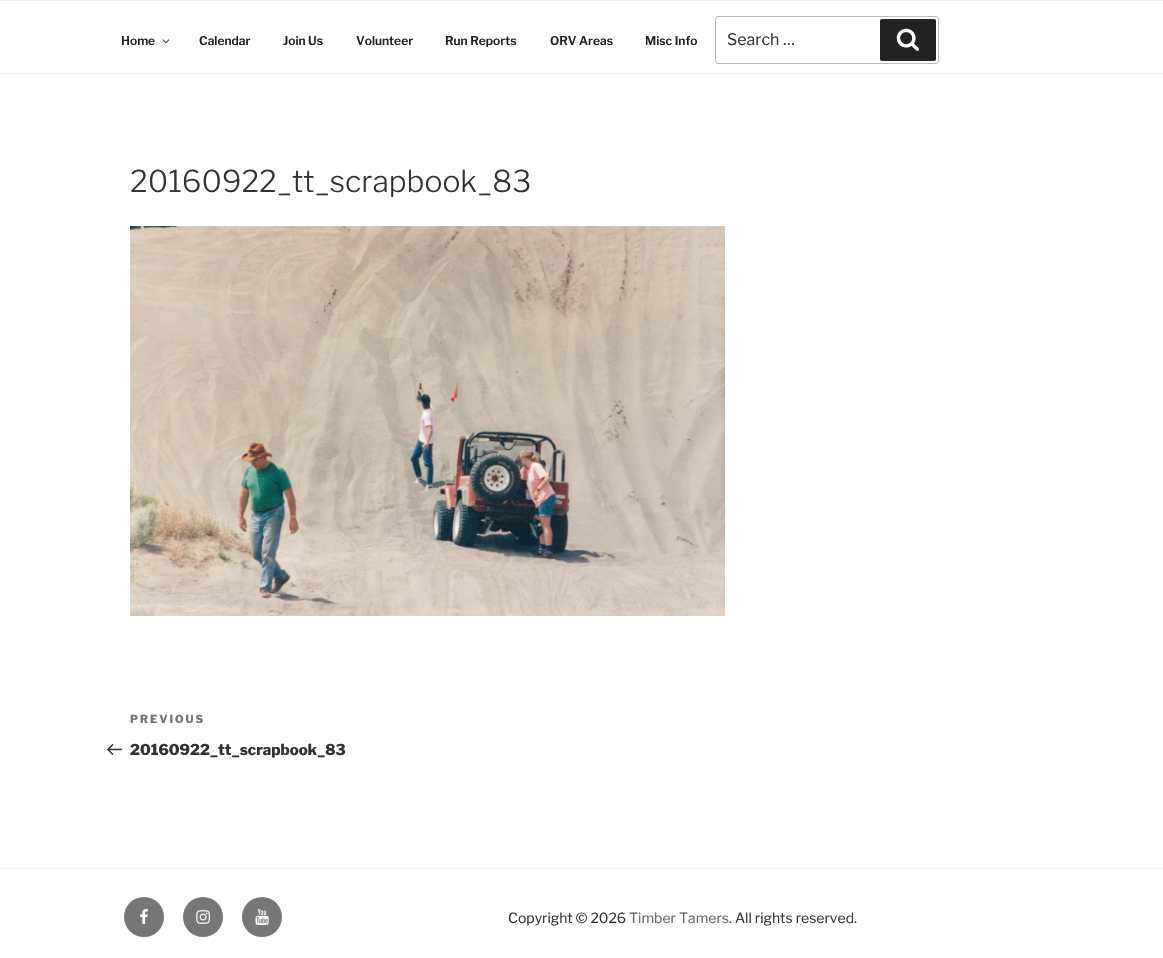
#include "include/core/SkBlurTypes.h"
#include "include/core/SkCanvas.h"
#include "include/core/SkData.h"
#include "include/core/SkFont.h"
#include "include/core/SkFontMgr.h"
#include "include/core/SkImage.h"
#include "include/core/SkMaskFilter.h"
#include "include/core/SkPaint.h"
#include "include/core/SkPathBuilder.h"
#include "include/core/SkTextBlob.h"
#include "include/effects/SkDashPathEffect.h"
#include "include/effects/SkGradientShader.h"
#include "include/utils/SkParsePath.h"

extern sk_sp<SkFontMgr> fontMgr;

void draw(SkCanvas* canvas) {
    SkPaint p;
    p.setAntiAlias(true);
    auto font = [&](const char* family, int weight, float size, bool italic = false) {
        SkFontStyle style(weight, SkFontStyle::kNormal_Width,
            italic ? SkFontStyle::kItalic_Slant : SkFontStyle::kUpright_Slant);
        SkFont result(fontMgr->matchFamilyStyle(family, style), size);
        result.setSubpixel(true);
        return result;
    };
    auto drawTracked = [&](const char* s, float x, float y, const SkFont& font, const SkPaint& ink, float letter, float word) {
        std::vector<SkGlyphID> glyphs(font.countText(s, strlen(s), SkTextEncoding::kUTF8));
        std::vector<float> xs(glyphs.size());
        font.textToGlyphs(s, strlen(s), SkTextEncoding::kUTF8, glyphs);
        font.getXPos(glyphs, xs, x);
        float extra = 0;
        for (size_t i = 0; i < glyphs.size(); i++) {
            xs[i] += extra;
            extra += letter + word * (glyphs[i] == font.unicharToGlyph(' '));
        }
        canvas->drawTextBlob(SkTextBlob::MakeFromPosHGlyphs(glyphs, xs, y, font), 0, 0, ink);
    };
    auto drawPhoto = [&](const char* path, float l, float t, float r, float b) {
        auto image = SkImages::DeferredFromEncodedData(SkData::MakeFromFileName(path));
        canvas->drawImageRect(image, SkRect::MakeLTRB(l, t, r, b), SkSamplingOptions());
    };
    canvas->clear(0xFFFFFFFF);
    p.setColor(0xFFEEEEEE);
    canvas->drawRect(SkRect::MakeLTRB(0, 0, 1163, 1), p);
    canvas->drawRect(SkRect::MakeLTRB(0, 73, 1163, 74), p);
    auto font1 = font("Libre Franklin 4", 100, 12);
    p.setColor(0xFF222222);
    canvas->drawString("Home", 121, 45, font1, p);
    drawPhoto("media/1.png", 162, 39, 170, 44);
    {
        const struct { const char* s; float x, y; } items[] = {
            {"Calendar", 199, 45},
            {"Join Us", 283, 45},
            {"Volunteer", 356, 45},
            {"Run Reports", 445, 45},
            {"ORV Areas", 550, 45},
            {"Misc Info", 645, 45},
        };
        for (auto [s, x, y] : items) {
            canvas->drawString(s, x, y, font1, p);
        }
    }
    p.setStyle(SkPaint::kStroke_Style);
    p.setStrokeWidth(1);
    p.setColor(0xFFBBBBBB);
    canvas->drawRoundRect(SkRect::MakeLTRB(715.5f, 16.5f, 938.5f, 63.5f), 2.5f, 2.5f, p);
    auto font2 = font("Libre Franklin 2", 100, 16);
    p.setStyle(SkPaint::kFill_Style);
    p.setColor(0xFF333333);
    canvas->drawString("Search …", 727, 45, font2, p);
    p.setColor(0xFF222222);
    canvas->drawRoundRect(SkRect::MakeLTRB(880, 19, 936, 61), 2, 2, p);
    drawPhoto("media/2.png", 896, 28, 919, 51);
    auto font3 = font("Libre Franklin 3", 100, 30);
    p.setColor(0xFF333333);
    canvas->drawString("20160922_tt_scrapbook_83", 130, 192, font3, p);
    drawPhoto("media/3.png", 130, 226, 725, 616);
    auto font4 = font("Libre Franklin", 100, 11);
    p.setColor(0xFF767676);
    drawTracked("PREVIOUS", 130, 723, font4, p, 2, 0);
    drawPhoto("media/4.png", 107, 744, 122, 755);
    auto font5 = font("Libre Franklin", 100, 15);
    p.setColor(0xFF333333);
    canvas->drawString("20160922_tt_scrapbook_83", 130, 755, font5, p);
    p.setColor(0xFFEEEEEE);
    canvas->drawRect(SkRect::MakeLTRB(0, 868, 1163, 869), p);
    p.setColor(0xFF767676);
    canvas->drawCircle(144, 917, 20, p);
    drawPhoto("media/5.png", 140, 909, 148, 924);
    canvas->drawCircle(203, 917, 20, p);
    drawPhoto("media/6.png", 196, 910, 210, 924);
    canvas->drawCircle(262, 917, 20, p);
    drawPhoto("media/7.png", 255, 909, 269, 925);
    auto font6 = font("Libre Franklin 2", 100, 14);
    p.setColor(0xFF333333);
    canvas->drawString("Copyright © 2026", 508, 923, font6, p);
    p.setColor(0xFF666666);
    canvas->drawString("Timber Tamers", 629, 923, font6, p);
    p.setColor(0xFF333333);
    canvas->drawString(". All rights reserved.", 729, 923, font6, p);
}
